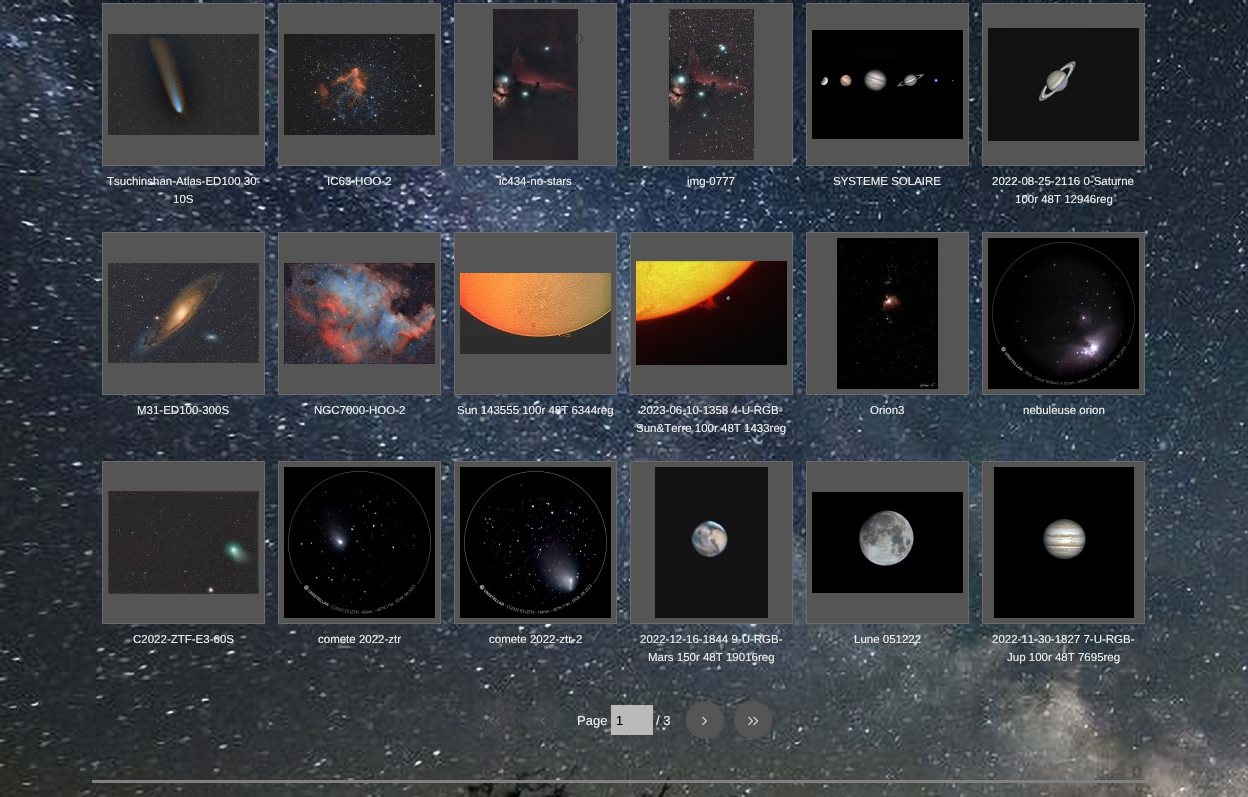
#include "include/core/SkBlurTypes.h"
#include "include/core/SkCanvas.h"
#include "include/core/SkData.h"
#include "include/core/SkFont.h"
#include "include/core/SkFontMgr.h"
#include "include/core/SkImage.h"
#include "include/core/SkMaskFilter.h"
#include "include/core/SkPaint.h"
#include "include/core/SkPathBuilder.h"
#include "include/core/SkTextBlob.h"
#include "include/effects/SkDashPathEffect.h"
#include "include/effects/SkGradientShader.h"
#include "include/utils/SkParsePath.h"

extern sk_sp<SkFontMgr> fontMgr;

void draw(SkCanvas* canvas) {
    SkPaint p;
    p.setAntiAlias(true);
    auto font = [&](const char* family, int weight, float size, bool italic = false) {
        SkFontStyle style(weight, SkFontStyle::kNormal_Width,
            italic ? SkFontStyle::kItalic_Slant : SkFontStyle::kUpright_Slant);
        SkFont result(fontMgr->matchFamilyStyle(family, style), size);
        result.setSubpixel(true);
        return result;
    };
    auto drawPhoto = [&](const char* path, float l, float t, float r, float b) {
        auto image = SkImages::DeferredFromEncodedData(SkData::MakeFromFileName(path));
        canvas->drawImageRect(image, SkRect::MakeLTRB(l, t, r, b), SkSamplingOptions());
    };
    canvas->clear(0xFFFFFFFF);
    drawPhoto("media/1.png", 0, 0, 1248, 797);
    p.setColor(0xFF555555);
    canvas->drawRect(SkRect::MakeLTRB(454.5f, 3.5f, 616.5f, 165.5f), p);
    p.setStyle(SkPaint::kStroke_Style);
    p.setStrokeWidth(1);
    p.setColor(0xFF6A6A6A);
    canvas->drawRect(SkRect::MakeLTRB(454.5f, 3.5f, 616.5f, 165.5f), p);
    drawPhoto("media/2.png", 493, 9, 578, 160);
    auto font1 = font("Liberation Sans", 400, 15);
    p.setStyle(SkPaint::kFill_Style);
    p.setColor(0xFF424043);
    canvas->drawString("0", 575, 44, font1, p);
    auto font2 = font("Liberation Sans", 400, 11.5f);
    p.setColor(0xFFF0F0F0);
    canvas->drawString("ic434-no-stars", 499, 185, font2, p);
    p.setColor(0xFF555555);
    canvas->drawRect(SkRect::MakeLTRB(102.5f, 3.5f, 264.5f, 165.5f), p);
    p.setStyle(SkPaint::kStroke_Style);
    p.setColor(0xFF6A6A6A);
    canvas->drawRect(SkRect::MakeLTRB(102.5f, 3.5f, 264.5f, 165.5f), p);
    drawPhoto("media/3.png", 108, 34, 259, 135);
    p.setStyle(SkPaint::kFill_Style);
    p.setColor(0xFFF0F0F0);
    canvas->drawString("Tsuchinshan-Atlas-ED100 30-", 107, 185, font2, p);
    canvas->drawString("10S", 173, 203, font2, p);
    p.setColor(0xFF555555);
    canvas->drawRect(SkRect::MakeLTRB(278.5f, 3.5f, 440.5f, 165.5f), p);
    p.setStyle(SkPaint::kStroke_Style);
    p.setColor(0xFF6A6A6A);
    canvas->drawRect(SkRect::MakeLTRB(278.5f, 3.5f, 440.5f, 165.5f), p);
    drawPhoto("media/4.png", 284, 34, 435, 135);
    p.setStyle(SkPaint::kFill_Style);
    p.setColor(0xFFF0F0F0);
    canvas->drawString("IC63-HOO-2", 327, 185, font2, p);
    p.setColor(0xFF555555);
    canvas->drawRect(SkRect::MakeLTRB(630.5f, 3.5f, 792.5f, 165.5f), p);
    p.setStyle(SkPaint::kStroke_Style);
    p.setColor(0xFF6A6A6A);
    canvas->drawRect(SkRect::MakeLTRB(630.5f, 3.5f, 792.5f, 165.5f), p);
    drawPhoto("media/5.png", 669, 9, 754, 160);
    p.setStyle(SkPaint::kFill_Style);
    p.setColor(0xFFF0F0F0);
    canvas->drawString("img-0777", 687, 185, font2, p);
    p.setColor(0xFF555555);
    canvas->drawRect(SkRect::MakeLTRB(806.5f, 3.5f, 968.5f, 165.5f), p);
    p.setStyle(SkPaint::kStroke_Style);
    p.setColor(0xFF6A6A6A);
    canvas->drawRect(SkRect::MakeLTRB(806.5f, 3.5f, 968.5f, 165.5f), p);
    drawPhoto("media/6.png", 812, 30, 963, 139);
    p.setStyle(SkPaint::kFill_Style);
    p.setColor(0xFFF0F0F0);
    canvas->drawString("SYSTEME SOLAIRE", 833, 185, font2, p);
    p.setColor(0xFF555555);
    canvas->drawRect(SkRect::MakeLTRB(982.5f, 3.5f, 1144.5f, 165.5f), p);
    p.setStyle(SkPaint::kStroke_Style);
    p.setColor(0xFF6A6A6A);
    canvas->drawRect(SkRect::MakeLTRB(982.5f, 3.5f, 1144.5f, 165.5f), p);
    drawPhoto("media/7.png", 988, 28, 1139, 141);
    p.setStyle(SkPaint::kFill_Style);
    p.setColor(0xFFF0F0F0);
    canvas->drawString("2022-08-25-2116 0-Saturne", 992, 185, font2, p);
    canvas->drawString("100r 48T 12946reg", 1015, 203, font2, p);
    p.setColor(0xFF555555);
    canvas->drawRect(SkRect::MakeLTRB(102.5f, 232.5f, 264.5f, 394.5f), p);
    p.setStyle(SkPaint::kStroke_Style);
    p.setColor(0xFF6A6A6A);
    canvas->drawRect(SkRect::MakeLTRB(102.5f, 232.5f, 264.5f, 394.5f), p);
    drawPhoto("media/8.png", 108, 263, 259, 363);
    p.setStyle(SkPaint::kFill_Style);
    p.setColor(0xFFF0F0F0);
    canvas->drawString("M31-ED100-300S", 137, 414, font2, p);
    p.setColor(0xFF555555);
    canvas->drawRect(SkRect::MakeLTRB(278.5f, 232.5f, 440.5f, 394.5f), p);
    p.setStyle(SkPaint::kStroke_Style);
    p.setColor(0xFF6A6A6A);
    canvas->drawRect(SkRect::MakeLTRB(278.5f, 232.5f, 440.5f, 394.5f), p);
    drawPhoto("media/9.png", 284, 263, 435, 364);
    p.setStyle(SkPaint::kFill_Style);
    p.setColor(0xFFF0F0F0);
    canvas->drawString("NGC7000-HOO-2", 314, 414, font2, p);
    p.setColor(0xFF555555);
    canvas->drawRect(SkRect::MakeLTRB(454.5f, 232.5f, 616.5f, 394.5f), p);
    p.setStyle(SkPaint::kStroke_Style);
    p.setColor(0xFF6A6A6A);
    canvas->drawRect(SkRect::MakeLTRB(454.5f, 232.5f, 616.5f, 394.5f), p);
    drawPhoto("media/10.png", 460, 273, 611, 354);
    p.setStyle(SkPaint::kFill_Style);
    p.setColor(0xFFF0F0F0);
    canvas->drawString("Sun 143555 100r 48T 6344reg", 457, 414, font2, p);
    p.setColor(0xFF555555);
    canvas->drawRect(SkRect::MakeLTRB(630.5f, 232.5f, 792.5f, 394.5f), p);
    p.setStyle(SkPaint::kStroke_Style);
    p.setColor(0xFF6A6A6A);
    canvas->drawRect(SkRect::MakeLTRB(630.5f, 232.5f, 792.5f, 394.5f), p);
    drawPhoto("media/11.png", 636, 261, 787, 365);
    p.setStyle(SkPaint::kFill_Style);
    p.setColor(0xFFF0F0F0);
    canvas->drawString("2023-06-10-1358 4-U-RGB-", 640, 414, font2, p);
    canvas->drawString("Sun&Terre 100r 48T 1433reg", 636, 432, font2, p);
    p.setColor(0xFF555555);
    canvas->drawRect(SkRect::MakeLTRB(806.5f, 232.5f, 968.5f, 394.5f), p);
    p.setStyle(SkPaint::kStroke_Style);
    p.setColor(0xFF6A6A6A);
    canvas->drawRect(SkRect::MakeLTRB(806.5f, 232.5f, 968.5f, 394.5f), p);
    drawPhoto("media/12.png", 837, 238, 938, 389);
    p.setStyle(SkPaint::kFill_Style);
    p.setColor(0xFFF0F0F0);
    canvas->drawString("Orion3", 870, 414, font2, p);
    p.setColor(0xFF555555);
    canvas->drawRect(SkRect::MakeLTRB(982.5f, 232.5f, 1144.5f, 394.5f), p);
    p.setStyle(SkPaint::kStroke_Style);
    p.setColor(0xFF6A6A6A);
    canvas->drawRect(SkRect::MakeLTRB(982.5f, 232.5f, 1144.5f, 394.5f), p);
    drawPhoto("media/13.png", 988, 238, 1139, 389);
    p.setStyle(SkPaint::kFill_Style);
    p.setColor(0xFFF0F0F0);
    canvas->drawString("nebuleuse orion", 1023, 414, font2, p);
    p.setColor(0xFF555555);
    canvas->drawRect(SkRect::MakeLTRB(102.5f, 461.5f, 264.5f, 623.5f), p);
    p.setStyle(SkPaint::kStroke_Style);
    p.setColor(0xFF6A6A6A);
    canvas->drawRect(SkRect::MakeLTRB(102.5f, 461.5f, 264.5f, 623.5f), p);
    drawPhoto("media/14.png", 108, 491, 259, 594);
    p.setStyle(SkPaint::kFill_Style);
    p.setColor(0xFFF0F0F0);
    canvas->drawString("C2022-ZTF-E3-60S", 133, 643, font2, p);
    p.setColor(0xFF555555);
    canvas->drawRect(SkRect::MakeLTRB(278.5f, 461.5f, 440.5f, 623.5f), p);
    p.setStyle(SkPaint::kStroke_Style);
    p.setColor(0xFF6A6A6A);
    canvas->drawRect(SkRect::MakeLTRB(278.5f, 461.5f, 440.5f, 623.5f), p);
    drawPhoto("media/15.png", 284, 467, 435, 618);
    p.setStyle(SkPaint::kFill_Style);
    p.setColor(0xFFF0F0F0);
    canvas->drawString("comete 2022-ztr", 318, 643, font2, p);
    p.setColor(0xFF555555);
    canvas->drawRect(SkRect::MakeLTRB(454.5f, 461.5f, 616.5f, 623.5f), p);
    p.setStyle(SkPaint::kStroke_Style);
    p.setColor(0xFF6A6A6A);
    canvas->drawRect(SkRect::MakeLTRB(454.5f, 461.5f, 616.5f, 623.5f), p);
    drawPhoto("media/16.png", 460, 467, 611, 618);
    p.setStyle(SkPaint::kFill_Style);
    p.setColor(0xFFF0F0F0);
    canvas->drawString("comete 2022-ztr-2", 489, 643, font2, p);
    p.setColor(0xFF555555);
    canvas->drawRect(SkRect::MakeLTRB(630.5f, 461.5f, 792.5f, 623.5f), p);
    p.setStyle(SkPaint::kStroke_Style);
    p.setColor(0xFF6A6A6A);
    canvas->drawRect(SkRect::MakeLTRB(630.5f, 461.5f, 792.5f, 623.5f), p);
    drawPhoto("media/17.png", 655, 467, 768, 618);
    p.setStyle(SkPaint::kFill_Style);
    p.setColor(0xFFF0F0F0);
    canvas->drawString("2022-12-16-1844 9-U-RGB-", 640, 643, font2, p);
    canvas->drawString("Mars 150r 48T 19016reg", 648, 661, font2, p);
    p.setColor(0xFF555555);
    canvas->drawRect(SkRect::MakeLTRB(806.5f, 461.5f, 968.5f, 623.5f), p);
    p.setStyle(SkPaint::kStroke_Style);
    p.setColor(0xFF6A6A6A);
    canvas->drawRect(SkRect::MakeLTRB(806.5f, 461.5f, 968.5f, 623.5f), p);
    drawPhoto("media/18.png", 812, 492, 963, 593);
    p.setStyle(SkPaint::kFill_Style);
    p.setColor(0xFFF0F0F0);
    canvas->drawString("Lune 051222", 854, 643, font2, p);
    p.setColor(0xFF555555);
    canvas->drawRect(SkRect::MakeLTRB(982.5f, 461.5f, 1144.5f, 623.5f), p);
    p.setStyle(SkPaint::kStroke_Style);
    p.setColor(0xFF6A6A6A);
    canvas->drawRect(SkRect::MakeLTRB(982.5f, 461.5f, 1144.5f, 623.5f), p);
    drawPhoto("media/19.png", 994, 467, 1134, 618);
    p.setStyle(SkPaint::kFill_Style);
    p.setColor(0xFFF0F0F0);
    canvas->drawString("2022-11-30-1827 7-U-RGB-", 992, 643, font2, p);
    canvas->drawString("Jup 100r 48T 7695reg", 1007, 661, font2, p);
    p.setColor(0x40555555);
    canvas->drawCircle(495, 720, 19, p);
    drawPhoto("media/20.png", 489, 716, 500, 726);
    canvas->drawCircle(543, 720, 19, p);
    drawPhoto("media/21.png", 540, 716, 546, 726);
    auto font3 = font("Liberation Sans", 400, 13);
    p.setColor(0xFFF0F0F0);
    canvas->drawString("Page", 577, 725, font3, p);
    p.setColor(0xFFBABABA);
    canvas->drawRect(SkRect::MakeLTRB(611, 705, 653, 735), p);
    p.setColor(0xFF000000);
    canvas->drawString("1", 616, 725, font3, p);
    p.setColor(0xFFF0F0F0);
    canvas->drawString("/ 3", 656, 725, font3, p);
    p.setColor(0xFF555555);
    canvas->drawCircle(705, 720, 19, p);
    drawPhoto("media/22.png", 702, 716, 707, 726);
    canvas->drawCircle(753, 720, 19, p);
    drawPhoto("media/23.png", 748, 716, 759, 726);
    p.setColor(0xFF808080);
    canvas->drawRect(SkRect::MakeLTRB(92, 780, 1157, 783), p);
}
